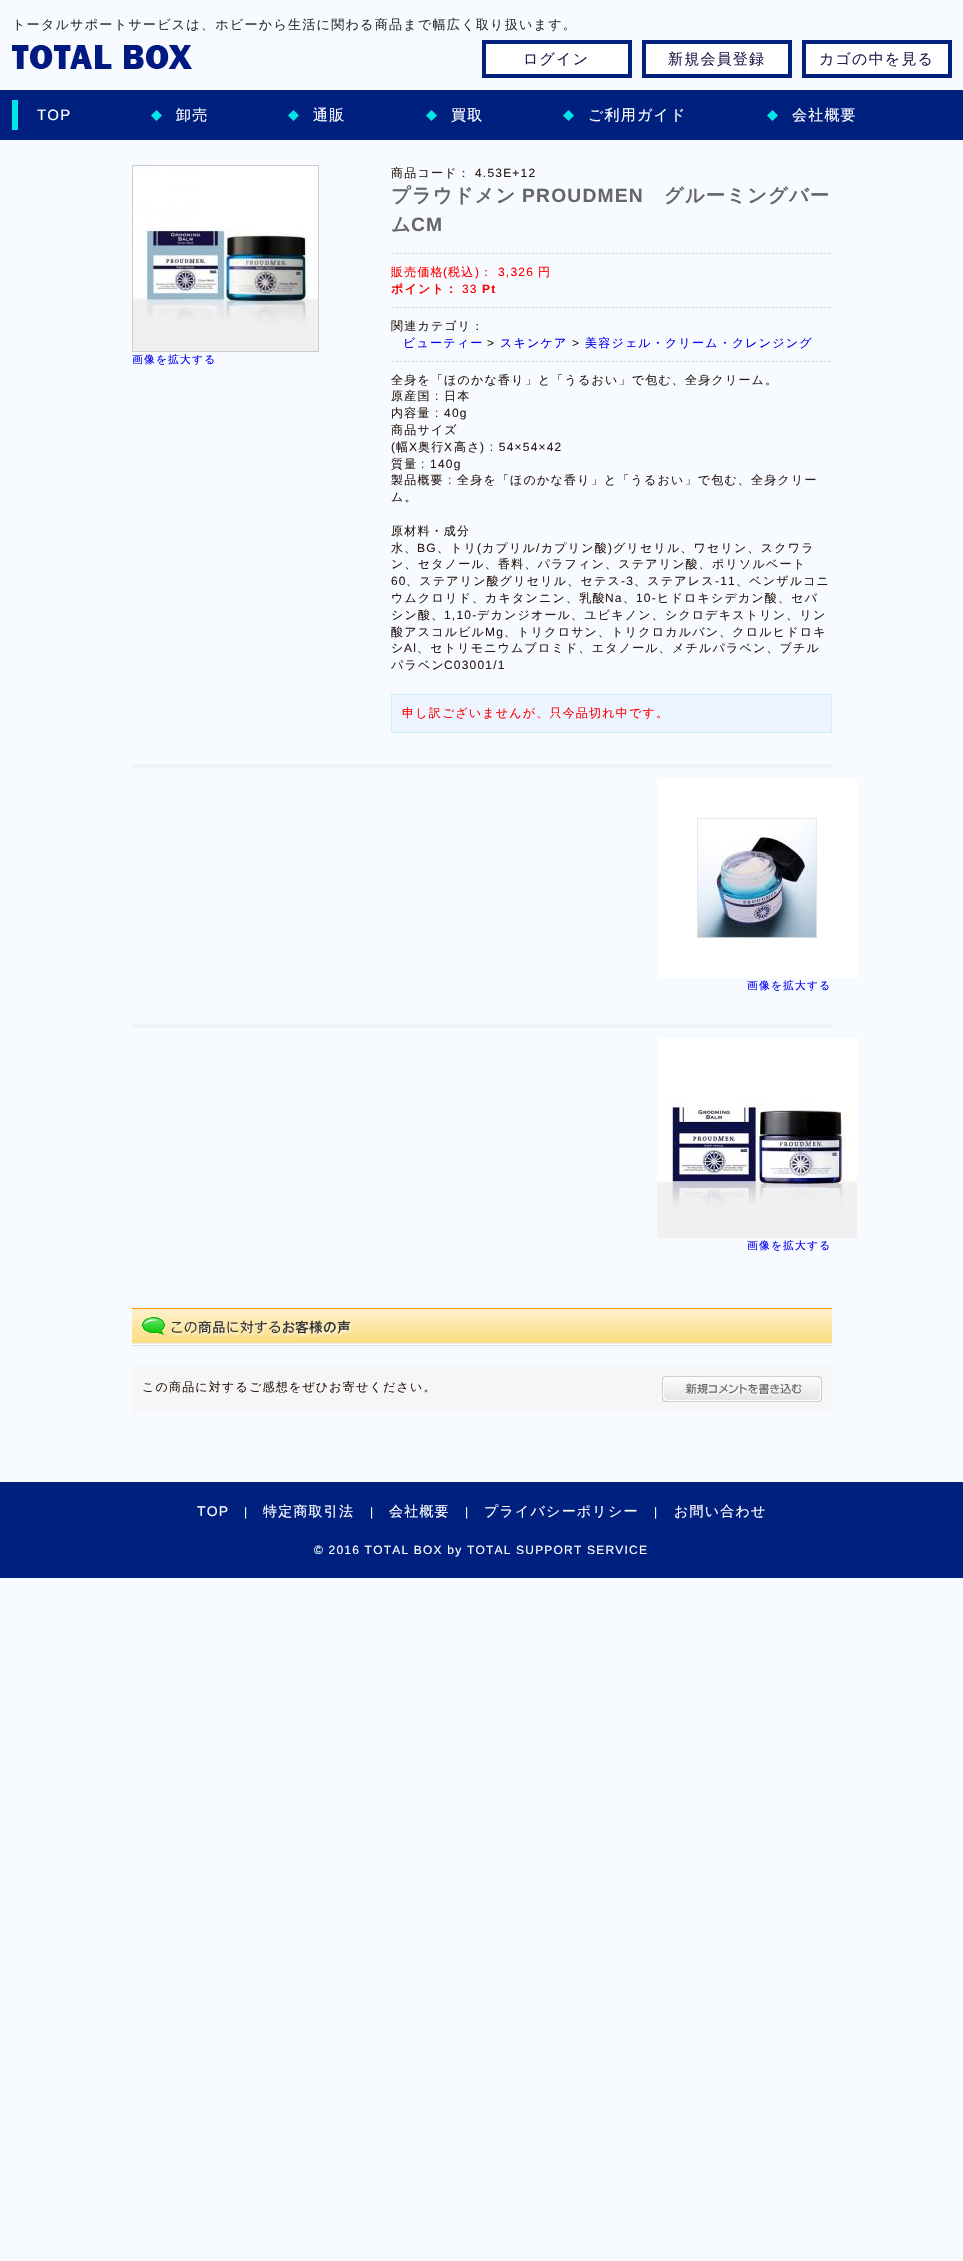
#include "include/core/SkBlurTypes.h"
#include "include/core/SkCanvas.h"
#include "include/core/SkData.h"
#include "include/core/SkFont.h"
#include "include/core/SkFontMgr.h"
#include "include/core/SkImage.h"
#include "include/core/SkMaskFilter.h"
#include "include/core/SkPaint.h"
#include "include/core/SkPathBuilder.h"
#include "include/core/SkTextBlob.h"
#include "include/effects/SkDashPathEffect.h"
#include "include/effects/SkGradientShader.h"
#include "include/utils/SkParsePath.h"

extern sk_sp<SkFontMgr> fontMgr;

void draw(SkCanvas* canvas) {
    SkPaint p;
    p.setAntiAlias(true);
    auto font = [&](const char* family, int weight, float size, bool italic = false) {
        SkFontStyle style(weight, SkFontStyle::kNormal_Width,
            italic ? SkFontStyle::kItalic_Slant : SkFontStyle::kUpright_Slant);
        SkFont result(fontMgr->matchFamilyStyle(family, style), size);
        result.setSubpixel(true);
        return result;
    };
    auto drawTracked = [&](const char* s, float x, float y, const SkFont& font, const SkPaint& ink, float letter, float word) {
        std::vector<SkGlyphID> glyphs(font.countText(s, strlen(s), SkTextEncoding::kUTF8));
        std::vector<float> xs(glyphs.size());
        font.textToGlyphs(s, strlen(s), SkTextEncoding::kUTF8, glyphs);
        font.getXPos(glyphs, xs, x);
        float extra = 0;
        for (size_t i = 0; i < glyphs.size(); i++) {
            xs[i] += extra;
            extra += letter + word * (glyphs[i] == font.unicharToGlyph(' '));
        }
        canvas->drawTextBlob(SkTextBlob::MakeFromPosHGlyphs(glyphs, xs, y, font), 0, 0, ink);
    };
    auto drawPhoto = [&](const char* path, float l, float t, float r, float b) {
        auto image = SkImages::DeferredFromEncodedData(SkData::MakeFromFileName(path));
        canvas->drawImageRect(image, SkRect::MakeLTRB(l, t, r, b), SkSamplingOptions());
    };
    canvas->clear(0xFFF7FAFF);
    auto font1 = font("WenQuanYi Zen Hei", 500, 13.1f);
    p.setColor(0xFF333333);
    drawTracked("トータルサポートサービスは、ホビーから生活に関わる商品まで幅広く取り扱います。", 12, 29, font1, p, 1.2f, 0);
    drawPhoto("media/1.png", 12, 45, 192, 69);
    p.setColor(0xFFFFFFFF);
    canvas->drawRect(SkRect::MakeLTRB(484, 42, 630, 76), p);
    p.setStyle(SkPaint::kStroke_Style);
    p.setStrokeWidth(4);
    p.setColor(0xFF01217F);
    canvas->drawRect(SkRect::MakeLTRB(484, 42, 630, 76), p);
    auto font2 = font("WenQuanYi Zen Hei", 500, 15);
    p.setStyle(SkPaint::kFill_Style);
    p.setColor(0xFF241D4F);
    drawTracked("ログイン", 523, 64, font2, p, 1.2f, 0);
    p.setColor(0xFFFFFFFF);
    canvas->drawRect(SkRect::MakeLTRB(644, 42, 790, 76), p);
    p.setStyle(SkPaint::kStroke_Style);
    p.setColor(0xFF01217F);
    canvas->drawRect(SkRect::MakeLTRB(644, 42, 790, 76), p);
    p.setStyle(SkPaint::kFill_Style);
    p.setColor(0xFF241D4F);
    drawTracked("新規会員登録", 668, 64, font2, p, 1.2f, 0);
    p.setColor(0xFFFFFFFF);
    canvas->drawRect(SkRect::MakeLTRB(804, 42, 950, 76), p);
    p.setStyle(SkPaint::kStroke_Style);
    p.setColor(0xFF01217F);
    canvas->drawRect(SkRect::MakeLTRB(804, 42, 950, 76), p);
    p.setStyle(SkPaint::kFill_Style);
    p.setColor(0xFF241D4F);
    drawTracked("カゴの中を見る", 819, 64, font2, p, 1.2f, 0);
    p.setColor(0xFF002080);
    canvas->drawRect(SkRect::MakeLTRB(0, 90, 963, 140), p);
    p.setColor(0xFF00E6E6);
    canvas->drawRect(SkRect::MakeLTRB(12, 100, 18, 130), p);
    auto font3 = font("Liberation Sans", 400, 15);
    p.setColor(0xFFFFFFFF);
    drawTracked("TOP", 37, 120, font3, p, 1.2f, 0);
    drawPhoto("media/2.png", 151, 110, 162, 121);
    drawTracked("卸売", 176, 120, font2, p, 1.2f, 0);
    drawPhoto("media/2.png", 288, 110, 299, 121);
    drawTracked("通販", 313, 120, font2, p, 1.2f, 0);
    drawPhoto("media/2.png", 426, 110, 437, 121);
    drawTracked("買取", 451, 120, font2, p, 1.2f, 0);
    drawPhoto("media/2.png", 563, 110, 574, 121);
    drawTracked("ご利用ガイド", 588, 120, font2, p, 1.2f, 0);
    drawPhoto("media/2.png", 767, 110, 778, 121);
    drawTracked("会社概要", 792, 120, font2, p, 1.2f, 0);
    p.setStyle(SkPaint::kStroke_Style);
    p.setStrokeWidth(1);
    p.setColor(0xFFCCCCCC);
    canvas->drawRect(SkRect::MakeLTRB(132.5f, 165.5f, 318.5f, 351.5f), p);
    drawPhoto("media/3.png", 133, 166, 318, 351);
    auto font4 = font("WenQuanYi Zen Hei", 500, 10.75f);
    p.setStyle(SkPaint::kFill_Style);
    p.setColor(0xFF0000EE);
    drawTracked("画像を拡大する", 132, 363, font4, p, 1.2f, 0);
    auto font5 = font("WenQuanYi Zen Hei", 500, 12);
    p.setColor(0xFF2A1B15);
    drawTracked("商品コード：", 391, 177, font5, p, 1.2f, 0);
    auto font6 = font("Liberation Sans", 400, 12);
    drawTracked("4.53E+12", 475, 177, font6, p, 1.2f, 0);
    drawPhoto("media/4.png", 391, 253, 832, 254);
    auto font7 = font("WenQuanYi Zen Hei", 700, 19.25f);
    p.setColor(0xFF666666);
    drawTracked("プラウドメン", 391, 202, font7, p, 1.2f, 0);
    auto font8 = font("Liberation Sans", 700, 19.25f);
    drawTracked("PROUDMEN", 522, 202, font8, p, 1.2f, 0);
    drawTracked("グルーミングバー", 664, 202, font7, p, 1.2f, 0);
    drawTracked("ム", 391, 231, font7, p, 1.2f, 0);
    drawTracked("CM", 411, 231, font8, p, 1.2f, 0);
    p.setColor(0xFFFF0000);
    drawTracked("販売価格", 391, 276, font5, p, 1.2f, 0);
    drawTracked("(", 443, 276, font6, p, 1.2f, 0);
    drawTracked("税込", 448, 276, font5, p, 1.2f, 0);
    drawTracked(")", 475, 276, font6, p, 1.2f, 0);
    drawTracked("：", 480, 276, font5, p, 1.2f, 0);
    drawTracked("3,326", 498, 276, font6, p, 1.2f, 0);
    drawTracked("円", 538, 276, font5, p, 1.2f, 0);
    drawPhoto("media/4.png", 391, 307, 832, 308);
    auto font9 = font("WenQuanYi Zen Hei", 700, 12);
    drawTracked("ポイント：", 391, 293, font9, p, 1.2f, 0);
    drawTracked("33", 462, 293, font6, p, 1.2f, 0);
    auto font10 = font("Liberation Sans", 700, 12);
    drawTracked("Pt", 482, 293, font10, p, 1.2f, 0);
    drawPhoto("media/4.png", 391, 361, 832, 362);
    p.setColor(0xFF2A1B15);
    drawTracked("関連カテゴリ：", 391, 330, font5, p, 1.2f, 0);
    p.setColor(0xFF0000EE);
    drawTracked("ビューティー", 403, 347, font5, p, 1.2f, 0);
    p.setColor(0xFF2A1B15);
    drawTracked(">", 487, 347, font6, p, 1.2f, 0);
    p.setColor(0xFF0000EE);
    drawTracked("スキンケア", 500, 347, font5, p, 1.2f, 0);
    p.setColor(0xFF2A1B15);
    drawTracked(">", 572, 347, font6, p, 1.2f, 0);
    p.setColor(0xFF0000EE);
    drawTracked("美容ジェル・クリーム・クレンジング", 585, 347, font5, p, 1.2f, 0);
    p.setColor(0xFF2A1B15);
    drawTracked("全身を「ほのかな香り」と「うるおい」で包む、全身クリーム。", 391, 384, font5, p, 1.2f, 0);
    drawTracked("原産国", 391, 400, font5, p, 1.2f, 0);
    drawTracked(":", 435, 400, font6, p, 1.2f, 0);
    drawTracked("日本", 444, 400, font5, p, 1.2f, 0);
    drawTracked("内容量", 391, 417, font5, p, 1.2f, 0);
    drawTracked(": 40g", 435, 417, font6, p, 1.2f, 0);
    drawTracked("商品サイズ", 391, 434, font5, p, 1.2f, 0);
    drawTracked("(", 391, 451, font6, p, 1.2f, 0);
    drawTracked("幅", 396, 451, font5, p, 1.2f, 0);
    drawTracked("X", 409, 451, font6, p, 1.2f, 0);
    drawTracked("奥行", 418, 451, font5, p, 1.2f, 0);
    drawTracked("X", 444, 451, font6, p, 1.2f, 0);
    drawTracked("高さ", 454, 451, font5, p, 1.2f, 0);
    drawTracked(") : 54×54×42", 480, 451, font6, p, 1.2f, 0);
    drawTracked("質量", 391, 468, font5, p, 1.2f, 0);
    drawTracked(": 140g", 421, 468, font6, p, 1.2f, 0);
    drawTracked("製品概要", 391, 484, font5, p, 1.2f, 0);
    drawTracked(":", 448, 484, font6, p, 1.2f, 0);
    {
        const struct { const char* s; float x, y; } items[] = {
            {"全身を「ほのかな香り」と「うるおい」で包む、全身クリー", 457, 484},
            {"ム。", 391, 501},
            {"原材料・成分", 391, 535},
            {"水、", 391, 552},
        };
        for (auto [s, x, y] : items) {
            drawTracked(s, x, y, font5, p, 1.2f, 0);
        }
    }
    drawTracked("BG", 417, 552, font6, p, 1.2f, 0);
    drawTracked("、トリ", 437, 552, font5, p, 1.2f, 0);
    drawTracked("(", 477, 552, font6, p, 1.2f, 0);
    drawTracked("カプリル カプリン酸", 482, 552, font5, p, 1.2f, 0);
    drawTracked("グリセリル、ワセリン、スクワラ", 613, 552, font5, p, 1.2f, 0);
    drawTracked("/", 536, 552, font6, p, 1.2f, 0);
    drawTracked(")", 608, 552, font6, p, 1.2f, 0);
    drawTracked("ン、セタノール、香料、パラフィン、ステアリン酸、ポリソルベート", 391, 568, font5, p, 1.2f, 0);
    drawTracked("60", 391, 585, font6, p, 1.2f, 0);
    drawTracked("、ステアリン酸グリセリル、セテス", 406, 585, font5, p, 1.2f, 0);
    drawTracked("-3", 621, 585, font6, p, 1.2f, 0);
    drawTracked("、ステアレス", 634, 585, font5, p, 1.2f, 0);
    drawTracked("-11", 715, 585, font6, p, 1.2f, 0);
    drawTracked("、ベンザルコニ", 736, 585, font5, p, 1.2f, 0);
    drawTracked("ウムクロリド、カキタンニン、乳酸", 391, 602, font5, p, 1.2f, 0);
    drawTracked("Na", 605, 602, font6, p, 1.2f, 0);
    drawTracked("、", 623, 602, font5, p, 1.2f, 0);
    drawTracked("10-", 636, 602, font6, p, 1.2f, 0);
    drawTracked("ヒドロキシデカン酸、セバ", 657, 602, font5, p, 1.2f, 0);
    drawTracked("シン酸、", 391, 619, font5, p, 1.2f, 0);
    drawTracked("1,10-", 444, 619, font6, p, 1.2f, 0);
    drawTracked("デカンジオール、ユビキノン、シクロデキストリン、リン", 477, 619, font5, p, 1.2f, 0);
    drawTracked("酸アスコルビル", 391, 636, font5, p, 1.2f, 0);
    drawTracked("Mg", 485, 636, font6, p, 1.2f, 0);
    drawTracked("、トリクロサン、トリクロカルバン、クロルヒドロキ", 504, 636, font5, p, 1.2f, 0);
    drawTracked("シ", 391, 652, font5, p, 1.2f, 0);
    drawTracked("Al", 404, 652, font6, p, 1.2f, 0);
    drawTracked("、セトリモニウムブロミド、エタノール、メチルパラベン、ブチル", 417, 652, font5, p, 1.2f, 0);
    drawTracked("パラベン", 391, 669, font5, p, 1.2f, 0);
    drawTracked("C03001/1", 444, 669, font6, p, 1.2f, 0);
    p.setColor(0xFFECF5FF);
    canvas->drawRect(SkRect::MakeLTRB(391.5f, 694.5f, 831.5f, 732.5f), p);
    p.setStyle(SkPaint::kStroke_Style);
    p.setColor(0xFFCEF0F4);
    canvas->drawRect(SkRect::MakeLTRB(391.5f, 694.5f, 831.5f, 732.5f), p);
    p.setStyle(SkPaint::kFill_Style);
    p.setColor(0xFFFF0000);
    drawTracked("申し訳ございませんが、只今品切れ中です。", 402, 717, font5, p, 1.2f, 0);
    p.setColor(0xFFF1F2F3);
    canvas->drawRect(SkRect::MakeLTRB(132, 764, 832, 768), p);
    drawPhoto("media/5.png", 657, 778, 857, 978);
    p.setColor(0xFF0000EE);
    drawTracked("画像を拡大する", 747, 989, font4, p, 1.2f, 0);
    p.setColor(0xFFF1F2F3);
    canvas->drawRect(SkRect::MakeLTRB(132, 1024, 832, 1028), p);
    drawPhoto("media/6.png", 657, 1038, 857, 1238);
    p.setColor(0xFF0000EE);
    drawTracked("画像を拡大する", 747, 1249, font4, p, 1.2f, 0);
    drawPhoto("media/7.png", 132, 1309, 832, 1346);
    p.setColor(0xFFFF9900);
    canvas->drawRect(SkRect::MakeLTRB(132, 1308, 832, 1309), p);
    drawPhoto("media/8.png", 142, 1317, 352, 1337);
    p.setColor(0xFFF6F6F6);
    canvas->drawRect(SkRect::MakeLTRB(132, 1366, 832, 1412), p);
    p.setColor(0xFF2A1B15);
    drawTracked("この商品に対するご感想をぜひお寄せください。", 142, 1391, font5, p, 1.2f, 0);
    drawPhoto("media/9.png", 662, 1376, 822, 1402);
    p.setColor(0xFF002080);
    canvas->drawRect(SkRect::MakeLTRB(0, 1482, 963, 1578), p);
    auto font11 = font("Liberation Sans", 400, 14);
    p.setColor(0xFFFFFFFF);
    drawTracked("TOP", 197, 1516, font11, p, 1.2f, 0);
    drawTracked("|", 244, 1516, font6, p, 1.2f, 0);
    auto font12 = font("WenQuanYi Zen Hei", 500, 14);
    drawTracked("特定商取引法", 263, 1516, font12, p, 1.2f, 0);
    drawTracked("|", 370, 1516, font6, p, 1.2f, 0);
    drawTracked("会社概要", 389, 1516, font12, p, 1.2f, 0);
    drawTracked("|", 465, 1516, font6, p, 1.2f, 0);
    drawTracked("プライバシーポリシー", 484, 1516, font12, p, 1.2f, 0);
    drawTracked("|", 654, 1516, font6, p, 1.2f, 0);
    drawTracked("お問い合わせ", 674, 1516, font12, p, 1.2f, 0);
    drawTracked("© 2016 TOTAL BOX by TOTAL SUPPORT SERVICE", 314, 1554, font6, p, 1.2f, 0);
}
